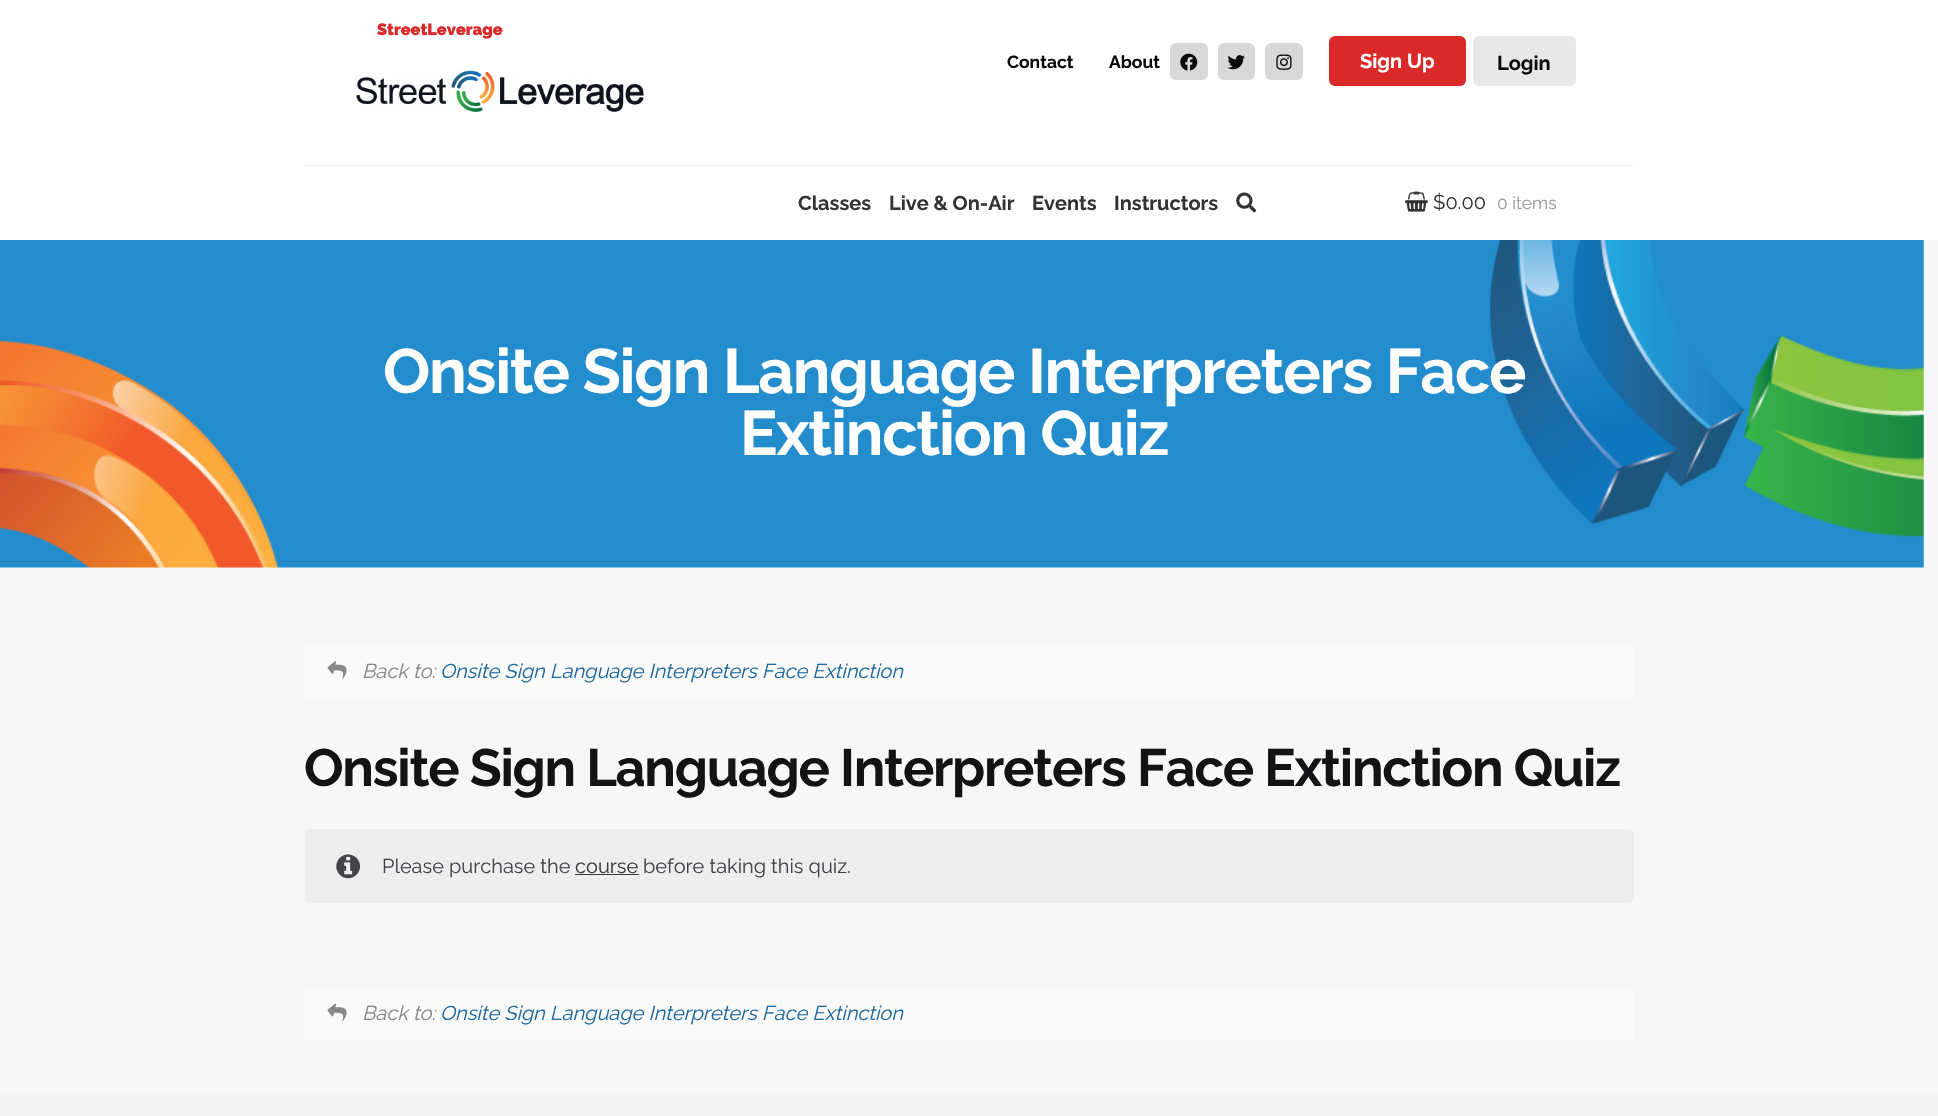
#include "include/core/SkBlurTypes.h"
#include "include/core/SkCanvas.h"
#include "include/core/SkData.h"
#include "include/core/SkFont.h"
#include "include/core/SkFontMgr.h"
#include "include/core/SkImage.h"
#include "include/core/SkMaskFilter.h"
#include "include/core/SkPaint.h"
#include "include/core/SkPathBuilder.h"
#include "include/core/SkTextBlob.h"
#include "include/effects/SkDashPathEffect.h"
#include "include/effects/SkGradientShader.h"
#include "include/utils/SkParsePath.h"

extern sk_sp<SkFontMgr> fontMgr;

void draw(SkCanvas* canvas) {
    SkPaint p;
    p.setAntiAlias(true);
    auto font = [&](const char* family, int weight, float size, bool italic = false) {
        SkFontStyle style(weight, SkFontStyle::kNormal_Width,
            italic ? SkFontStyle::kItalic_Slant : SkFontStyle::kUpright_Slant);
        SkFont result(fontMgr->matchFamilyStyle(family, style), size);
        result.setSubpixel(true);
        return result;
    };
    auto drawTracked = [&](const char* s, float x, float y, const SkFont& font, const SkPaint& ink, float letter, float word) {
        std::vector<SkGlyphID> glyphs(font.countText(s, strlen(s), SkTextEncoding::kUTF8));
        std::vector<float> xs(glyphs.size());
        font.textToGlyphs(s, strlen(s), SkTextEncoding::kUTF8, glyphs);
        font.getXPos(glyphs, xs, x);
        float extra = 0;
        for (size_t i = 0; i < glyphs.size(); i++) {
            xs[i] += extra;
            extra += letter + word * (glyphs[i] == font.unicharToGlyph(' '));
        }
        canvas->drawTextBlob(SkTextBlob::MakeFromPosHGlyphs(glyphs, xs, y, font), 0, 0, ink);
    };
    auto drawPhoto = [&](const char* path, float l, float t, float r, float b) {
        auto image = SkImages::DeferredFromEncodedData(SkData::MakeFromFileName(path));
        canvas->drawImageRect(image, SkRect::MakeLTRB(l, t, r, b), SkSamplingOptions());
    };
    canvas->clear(0xFFF7F7F7);
    p.setColor(0xFFFFFFFF);
    canvas->drawRect(SkRect::MakeLTRB(0, 0, 1938, 240), p);
    auto font1 = font("Raleway", 900, 16.25f);
    p.setColor(0xFFDA2929);
    canvas->drawString("StreetLeverage", 377, 35, font1, p);
    drawPhoto("media/1.png", 356, 70, 644, 112);
    auto font2 = font("Raleway", 700, 17.5f);
    p.setColor(0xFF0A0A0A);
    canvas->drawString("Contact", 1007, 68, font2, p);
    canvas->drawString("About", 1109, 68, font2, p);
    p.setColor(0xFFD8D8D8);
    canvas->drawRoundRect(SkRect::MakeLTRB(1170, 43, 1208, 80), 6, 6, p);
    drawPhoto("media/2.png", 1180, 53, 1198, 71);
    canvas->drawRoundRect(SkRect::MakeLTRB(1218, 43, 1255, 80), 6, 6, p);
    drawPhoto("media/3.png", 1227, 55, 1245, 70);
    canvas->drawRoundRect(SkRect::MakeLTRB(1265, 43, 1303, 80), 6, 6, p);
    drawPhoto("media/4.png", 1276, 54, 1292, 70);
    p.setColor(0xFFDA2929);
    canvas->drawRoundRect(SkRect::MakeLTRB(1329, 36, 1466, 86), 6, 6, p);
    auto font3 = font("Raleway", 700, 20);
    p.setColor(0xFFFFFFFF);
    canvas->drawString("Sign Up", 1360, 68, font3, p);
    p.setColor(0xFFE8E8E8);
    canvas->drawRoundRect(SkRect::MakeLTRB(1473, 36, 1576, 86), 6, 6, p);
    p.setColor(0xFF0A0A0A);
    canvas->drawString("Login", 1497, 70, font3, p);
    p.setColor(0xFFEEEEEE);
    canvas->drawRect(SkRect::MakeLTRB(305, 165, 1634, 166), p);
    p.setColor(0xFF333333);
    {
        const struct { const char* s; float x, y; } items[] = {
            {"Classes", 798, 210},
            {"Live & On-Air", 889, 210},
            {"Events", 1032, 210},
            {"Instructors", 1114, 210},
        };
        for (auto [s, x, y] : items) {
            canvas->drawString(s, x, y, font3, p);
        }
    }
    drawPhoto("media/5.png", 1236, 192, 1257, 213);
    drawPhoto("media/6.png", 1405, 191, 1428, 212);
    auto font4 = font("Raleway", 400, 20);
    canvas->drawString("$0.00", 1433, 209, font4, p);
    auto font5 = font("Raleway", 400, 17.5f);
    p.setColor(0xFF999999);
    canvas->drawString("0 items", 1497, 209, font5, p);
    drawPhoto("media/7.png", 0, 240, 1924, 568);
    auto font6 = font("Raleway", 700, 62.5f);
    p.setColor(0xFFFFFFFF);
    drawTracked("Onsite Sign Language Interpreters Face", 383, 393, font6, p, -1.25f, 0);
    drawTracked("Extinction Quiz", 740, 455, font6, p, -1.25f, 0);
    p.setColor(0xFFFAFAFA);
    canvas->drawRect(SkRect::MakeLTRB(305, 645, 1634, 698), p);
    drawPhoto("media/8.png", 327, 661, 347, 679);
    auto font7 = font("Raleway", 400, 20, true);
    p.setColor(0xFF888888);
    canvas->drawString("Back to:", 362, 678, font7, p);
    p.setColor(0xFF1D689F);
    canvas->drawString("Onsite Sign Language Interpreters Face Extinction", 440, 678, font7, p);
    auto font8 = font("Raleway", 700, 52.35f);
    p.setColor(0xFF131315);
    drawTracked("Onsite Sign Language Interpreters Face Extinction Quiz", 304, 786, font8, p, -1.25f, 0);
    p.setColor(0xFFEEEEEE);
    canvas->drawRoundRect(SkRect::MakeLTRB(305, 829, 1634, 903), 6, 6, p);
    drawPhoto("media/9.png", 336, 854, 360, 879);
    p.setColor(0xFF43454B);
    canvas->drawString("Please purchase the", 382, 873, font4, p);
    p.setColor(0xFF3C3C3C);
    canvas->drawString("course", 575, 873, font4, p);
    canvas->drawRect(SkRect::MakeLTRB(575, 874, 639, 875), p);
    p.setColor(0xFF43454B);
    canvas->drawString("before taking this quiz.", 643, 873, font4, p);
    p.setColor(0xFFFAFAFA);
    canvas->drawRect(SkRect::MakeLTRB(305, 988, 1634, 1040), p);
    drawPhoto("media/10.png", 327, 1003, 347, 1022);
    p.setColor(0xFF888888);
    canvas->drawString("Back to:", 362, 1020, font7, p);
    p.setColor(0xFF1D689F);
    canvas->drawString("Onsite Sign Language Interpreters Face Extinction", 440, 1020, font7, p);
    p.setColor(0xFFF3F3F3);
    canvas->drawRect(SkRect::MakeLTRB(0, 1093, 1938, 1116), p);
}
